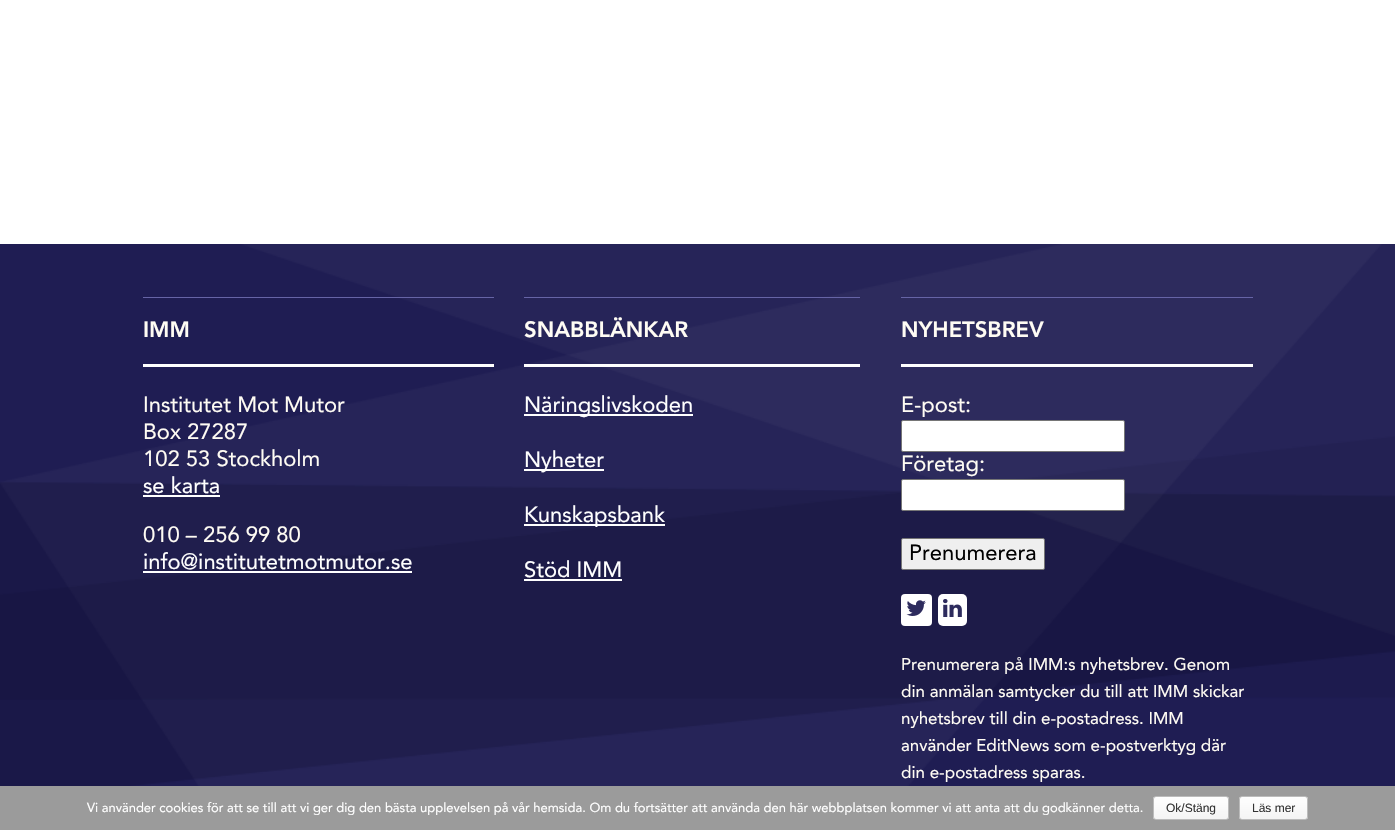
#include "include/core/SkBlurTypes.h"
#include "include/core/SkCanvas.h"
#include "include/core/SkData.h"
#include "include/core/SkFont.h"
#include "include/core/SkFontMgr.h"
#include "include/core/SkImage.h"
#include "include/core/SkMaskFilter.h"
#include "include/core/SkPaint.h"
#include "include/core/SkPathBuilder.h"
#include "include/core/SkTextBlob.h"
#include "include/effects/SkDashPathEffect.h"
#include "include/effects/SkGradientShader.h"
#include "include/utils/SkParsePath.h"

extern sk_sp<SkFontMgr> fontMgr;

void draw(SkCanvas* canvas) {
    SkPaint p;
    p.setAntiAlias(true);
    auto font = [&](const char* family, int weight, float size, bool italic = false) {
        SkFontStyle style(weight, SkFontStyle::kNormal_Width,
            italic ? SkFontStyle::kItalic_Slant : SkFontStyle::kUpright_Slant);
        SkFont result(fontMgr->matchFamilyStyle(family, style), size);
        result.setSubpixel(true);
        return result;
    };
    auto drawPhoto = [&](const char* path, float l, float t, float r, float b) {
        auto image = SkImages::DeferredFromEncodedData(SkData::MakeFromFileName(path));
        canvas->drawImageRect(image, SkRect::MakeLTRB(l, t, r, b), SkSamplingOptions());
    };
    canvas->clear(0xFFFFFFFF);
    drawPhoto("media/1.png", 0, 244, 1395, 786);
    p.setColor(0xFF6664A6);
    canvas->drawRect(SkRect::MakeLTRB(143, 297, 494, 298), p);
    p.setColor(0xFFFFFFFF);
    canvas->drawRect(SkRect::MakeLTRB(143, 364, 494, 367), p);
    auto font1 = font("Avenir", 400, 22);
    p.setColor(0xFFFFFCF4);
    canvas->drawString("IMM", 143, 337, font1, p);
    auto font2 = font("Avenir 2", 400, 22);
    {
        const struct { const char* s; float x, y; } items[] = {
            {"Institutet Mot Mutor", 143, 412},
            {"Box 27287", 143, 439},
            {"102 53 Stockholm", 143, 466},
        };
        for (auto [s, x, y] : items) {
            canvas->drawString(s, x, y, font2, p);
        }
    }
    p.setColor(0xFFFFFFFF);
    canvas->drawString("se karta", 143, 493, font2, p);
    canvas->drawRect(SkRect::MakeLTRB(143, 495, 220, 497), p);
    p.setColor(0xFFFFFCF4);
    canvas->drawString("010 – 256 99 80", 143, 542, font2, p);
    p.setColor(0xFFFFFFFF);
    canvas->drawString("info@institutetmotmutor.se", 143, 569, font2, p);
    {
        const struct { float l, t, r, b; SkColor color; } items[] = {
            {143, 571, 412, 573, 0xFFFFFFFF},
            {524, 297, 860, 298, 0xFF6664A6},
            {524, 364, 860, 367, 0xFFFFFFFF},
        };
        for (auto [l, t, r, b, color] : items) {
            p.setColor(color);
            canvas->drawRect(SkRect::MakeLTRB(l, t, r, b), p);
        }
    }
    p.setColor(0xFFFFFCF4);
    canvas->drawString("SNABBLÄNKAR", 524, 337, font1, p);
    p.setColor(0xFFFFFFFF);
    canvas->drawRect(SkRect::MakeLTRB(524, 414, 693, 416), p);
    canvas->drawString("Näringslivskoden", 524, 412, font2, p);
    canvas->drawRect(SkRect::MakeLTRB(524, 469, 604, 471), p);
    canvas->drawString("Nyheter", 524, 467, font2, p);
    canvas->drawRect(SkRect::MakeLTRB(524, 524, 665, 526), p);
    canvas->drawString("Kunskapsbank", 524, 522, font2, p);
    canvas->drawString("Stöd IMM", 524, 577, font2, p);
    {
        const struct { float l, t, r, b; SkColor color; } items[] = {
            {524, 579, 622, 581, 0xFFFFFFFF},
            {901, 297, 1253, 298, 0xFF6664A6},
            {901, 364, 1253, 367, 0xFFFFFFFF},
        };
        for (auto [l, t, r, b, color] : items) {
            p.setColor(color);
            canvas->drawRect(SkRect::MakeLTRB(l, t, r, b), p);
        }
    }
    p.setColor(0xFFFFFCF4);
    canvas->drawString("NYHETSBREV", 901, 337, font1, p);
    canvas->drawString("E-post:", 901, 412, font2, p);
    p.setColor(0xFFFFFFFF);
    canvas->drawRoundRect(SkRect::MakeLTRB(901.5f, 420.5f, 1124.5f, 451.5f), 1.5f, 1.5f, p);
    p.setStyle(SkPaint::kStroke_Style);
    p.setStrokeWidth(1);
    p.setColor(0xFF767676);
    canvas->drawRoundRect(SkRect::MakeLTRB(901.5f, 420.5f, 1124.5f, 451.5f), 1.5f, 1.5f, p);
    p.setStyle(SkPaint::kFill_Style);
    p.setColor(0xFFFFFCF4);
    canvas->drawString("Företag:", 901, 471, font2, p);
    p.setColor(0xFFFFFFFF);
    canvas->drawRoundRect(SkRect::MakeLTRB(901.5f, 479.5f, 1124.5f, 510.5f), 1.5f, 1.5f, p);
    p.setStyle(SkPaint::kStroke_Style);
    p.setColor(0xFF767676);
    canvas->drawRoundRect(SkRect::MakeLTRB(901.5f, 479.5f, 1124.5f, 510.5f), 1.5f, 1.5f, p);
    p.setStyle(SkPaint::kFill_Style);
    p.setColor(0xFFEFEFEF);
    canvas->drawRoundRect(SkRect::MakeLTRB(901.5f, 538.5f, 1044.5f, 569.5f), 1.5f, 1.5f, p);
    p.setStyle(SkPaint::kStroke_Style);
    p.setColor(0xFF767676);
    canvas->drawRoundRect(SkRect::MakeLTRB(901.5f, 538.5f, 1044.5f, 569.5f), 1.5f, 1.5f, p);
    p.setStyle(SkPaint::kFill_Style);
    p.setColor(0xFF000000);
    canvas->drawString("Prenumerera", 909, 560, font2, p);
    p.setColor(0xFFFFFFFF);
    canvas->drawRoundRect(SkRect::MakeLTRB(901, 594, 932, 626), 4, 4, p);
    drawPhoto("media/2.png", 906, 600, 926, 616);
    canvas->drawRoundRect(SkRect::MakeLTRB(938, 594, 967, 626), 5, 5, p);
    drawPhoto("media/3.png", 943, 599, 962, 617);
    auto font3 = font("Avenir 2", 400, 17);
    p.setColor(0xFFFFFCF4);
    {
        const struct { const char* s; float x, y; } items[] = {
            {"Prenumerera på IMM:s nyhetsbrev. Genom", 901, 670},
            {"din anmälan samtycker du till att IMM skickar", 901, 697},
            {"nyhetsbrev till din e-postadress. IMM", 901, 724},
            {"använder EditNews som e-postverktyg där", 901, 751},
            {"din e-postadress sparas.", 901, 778},
        };
        for (auto [s, x, y] : items) {
            canvas->drawString(s, x, y, font3, p);
        }
    }
    p.setColor(0xFF9B9B9B);
    canvas->drawRect(SkRect::MakeLTRB(0, 786, 1395, 830), p);
    auto font4 = font("Avenir 2", 400, 13);
    p.setColor(0xFFFFFFFF);
    canvas->drawString("Vi använder cookies för att se till att vi ger dig den bästa upplevelsen på vår hemsida. Om du fortsätter att använda den här webbplatsen kommer vi att anta att du godkänner detta.", 87, 812, font4, p);
    canvas->save();
    canvas->clipPath(SkPathBuilder().moveTo(1156, 796).lineTo(1226, 796).cubicTo(1227.5f, 796, 1229, 797.5f, 1229, 799).lineTo(1229, 817).cubicTo(1229, 818.5f, 1227.5f, 820, 1226, 820).lineTo(1156, 820).cubicTo(1154.5f, 820, 1153, 818.5f, 1153, 817).lineTo(1153, 799).cubicTo(1153, 797.5f, 1154.5f, 796, 1156, 796).close().detach(), true);
    {
        const SkColor colors[] = {0xFFFEFEFE, 0xFFF4F4F4};
        const float stops[] = {0, 1};
        const SkPoint ends[] = {{1191, 797}, {1191, 819}};
        p.setShader(SkGradientShader::MakeLinear(ends, colors, stops, 2, SkTileMode::kClamp));
        p.setAlpha(255);
    }
    canvas->drawRect(SkRect::MakeLTRB(1153, 797, 1229, 819), p);
    canvas->restore();
    p.setStyle(SkPaint::kStroke_Style);
    p.setShader(nullptr);
    p.setColor(0xFFBBBBBB);
    canvas->drawRoundRect(SkRect::MakeLTRB(1153.5f, 796.5f, 1228.5f, 819.5f), 2.5f, 2.5f, p);
    auto font5 = font("Liberation Sans", 400, 12);
    p.setStyle(SkPaint::kFill_Style);
    p.setColor(0xFF333333);
    canvas->drawString("Ok/Stäng", 1166, 812, font5, p);
    canvas->save();
    canvas->clipPath(SkPathBuilder().moveTo(1242, 796).lineTo(1305, 796).cubicTo(1306.5f, 796, 1308, 797.5f, 1308, 799).lineTo(1308, 817).cubicTo(1308, 818.5f, 1306.5f, 820, 1305, 820).lineTo(1242, 820).cubicTo(1240.5f, 820, 1239, 818.5f, 1239, 817).lineTo(1239, 799).cubicTo(1239, 797.5f, 1240.5f, 796, 1242, 796).close().detach(), true);
    {
        const SkColor colors[] = {0xFFFEFEFE, 0xFFF4F4F4};
        const float stops[] = {0, 1};
        const SkPoint ends[] = {{1274, 797}, {1274, 819}};
        p.setShader(SkGradientShader::MakeLinear(ends, colors, stops, 2, SkTileMode::kClamp));
        p.setAlpha(255);
    }
    canvas->drawRect(SkRect::MakeLTRB(1239, 797, 1308, 819), p);
    canvas->restore();
    p.setStyle(SkPaint::kStroke_Style);
    p.setShader(nullptr);
    p.setColor(0xFFBBBBBB);
    canvas->drawRoundRect(SkRect::MakeLTRB(1239.5f, 796.5f, 1307.5f, 819.5f), 2.5f, 2.5f, p);
    p.setStyle(SkPaint::kFill_Style);
    p.setColor(0xFF333333);
    canvas->drawString("Läs mer", 1252, 812, font5, p);
}
